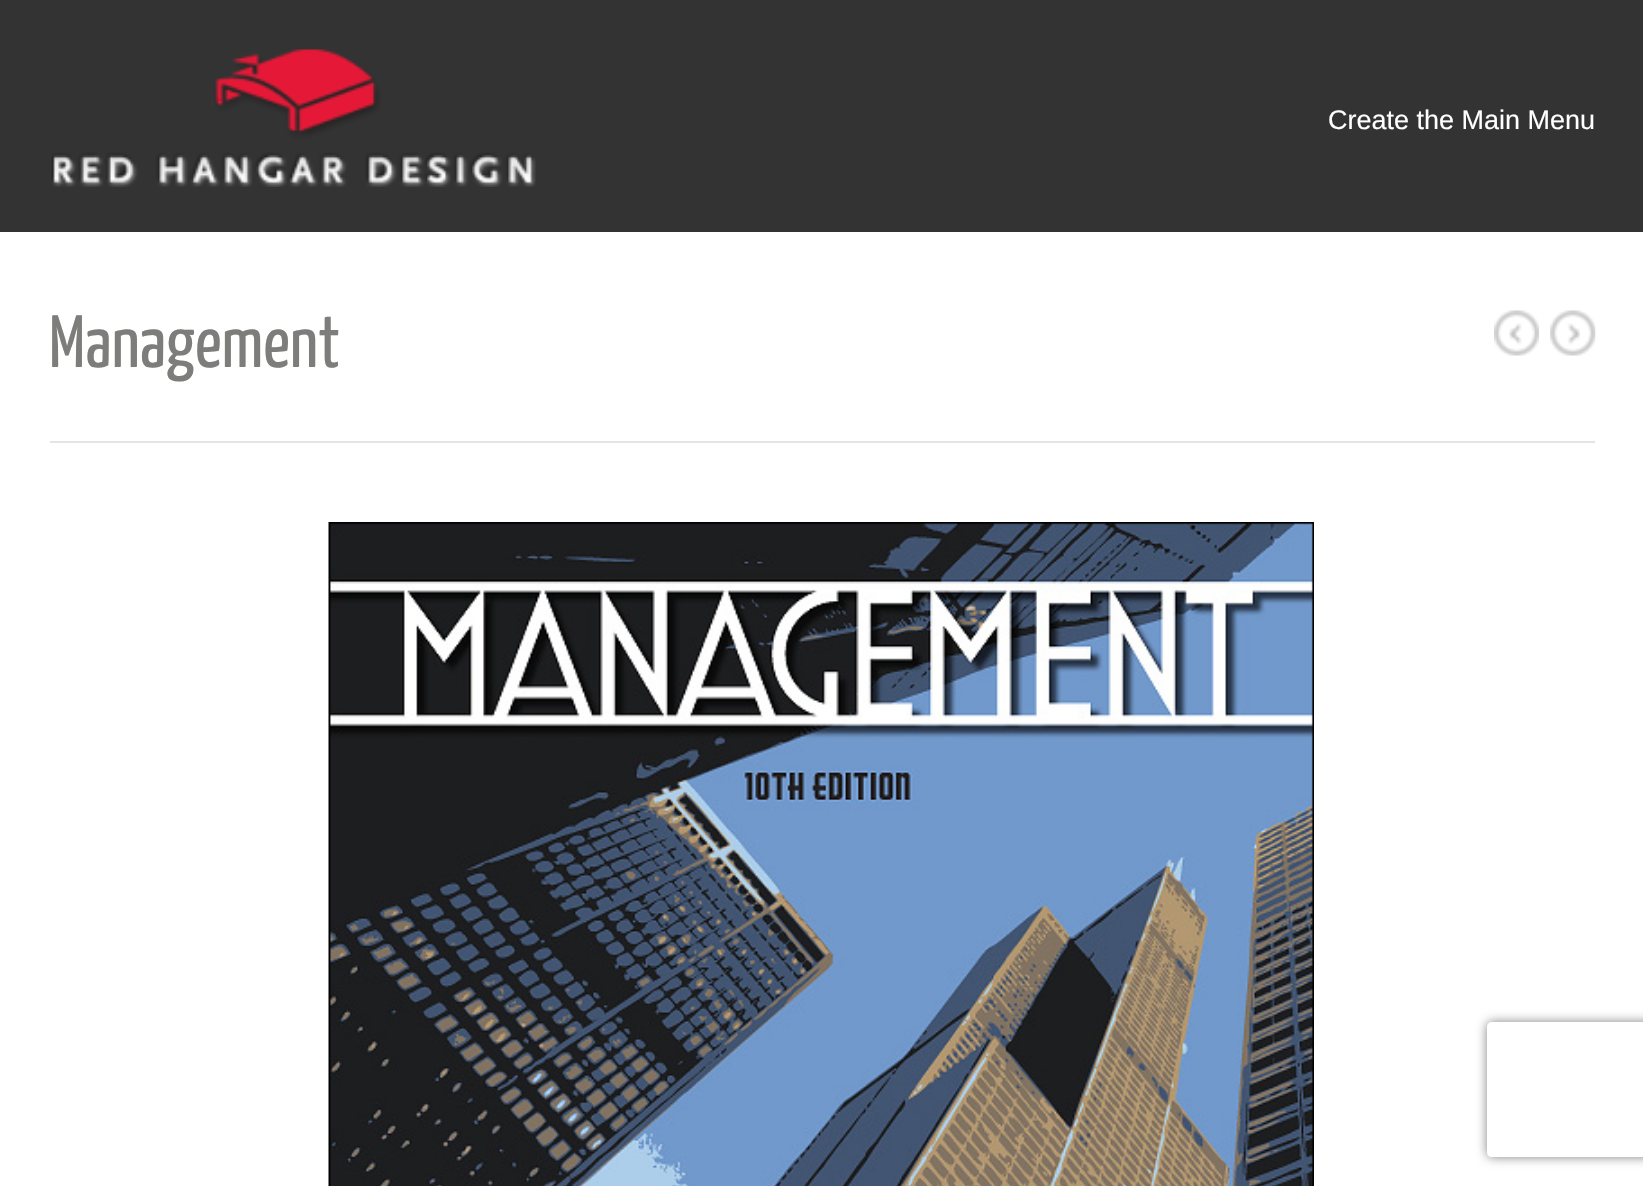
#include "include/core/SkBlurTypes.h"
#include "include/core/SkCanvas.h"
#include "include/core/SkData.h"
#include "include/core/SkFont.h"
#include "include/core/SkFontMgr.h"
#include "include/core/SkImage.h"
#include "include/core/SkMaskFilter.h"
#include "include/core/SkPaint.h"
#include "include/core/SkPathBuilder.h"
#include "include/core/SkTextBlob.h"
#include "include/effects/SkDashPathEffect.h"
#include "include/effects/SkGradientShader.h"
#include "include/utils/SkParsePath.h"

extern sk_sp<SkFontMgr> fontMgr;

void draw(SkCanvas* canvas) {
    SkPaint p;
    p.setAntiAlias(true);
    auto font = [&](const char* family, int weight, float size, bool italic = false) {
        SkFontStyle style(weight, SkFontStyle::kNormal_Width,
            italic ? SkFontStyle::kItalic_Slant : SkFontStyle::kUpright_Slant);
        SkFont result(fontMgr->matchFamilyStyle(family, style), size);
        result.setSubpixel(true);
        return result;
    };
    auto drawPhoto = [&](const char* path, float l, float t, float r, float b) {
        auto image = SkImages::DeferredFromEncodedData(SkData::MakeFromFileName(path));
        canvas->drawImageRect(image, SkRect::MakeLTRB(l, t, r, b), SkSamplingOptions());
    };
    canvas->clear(0xFFFFFFFF);
    p.setColor(0xFF333333);
    canvas->drawRect(SkRect::MakeLTRB(0, 0, 1643, 232), p);
    drawPhoto("media/1.png", 51, 49, 536, 187);
    auto font1 = font("Liberation Sans", 400, 27);
    p.setColor(0xFFFFFFFF);
    canvas->drawString("Create the Main Menu", 1328, 129, font1, p);
    p.setColor(0xFFE4E4E4);
    canvas->drawRect(SkRect::MakeLTRB(50, 441, 1595, 443), p);
    auto font2 = font("Yanone Kaffeesatz", 400, 74);
    p.setColor(0xFF7D7D7B);
    canvas->drawString("Management", 49, 367, font2, p);
    drawPhoto("media/2.png", 1494, 310, 1539, 356);
    drawPhoto("media/3.png", 1550, 310, 1596, 356);
    drawPhoto("media/4.png", 328, 522, 1314, 1186);
    canvas->save();
    canvas->clipPath(SkPathBuilder(SkPathFillType::kEvenOdd).moveTo(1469, 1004).lineTo(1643, 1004).lineTo(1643, 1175).lineTo(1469, 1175).close().moveTo(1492, 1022).lineTo(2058, 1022).cubicTo(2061, 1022, 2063, 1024, 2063, 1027).lineTo(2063, 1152).cubicTo(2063, 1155, 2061, 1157, 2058, 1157).lineTo(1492, 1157).cubicTo(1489, 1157, 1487, 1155, 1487, 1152).lineTo(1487, 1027).cubicTo(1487, 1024, 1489, 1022, 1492, 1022).close().detach(), true);
    p.setColor(0xFF808080);
    p.setMaskFilter(SkMaskFilter::MakeBlur(kNormal_SkBlurStyle, 5.5f));
    canvas->drawRoundRect(SkRect::MakeLTRB(1487, 1022, 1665, 1157), 5, 5, p);
    p.setMaskFilter(nullptr);
    canvas->restore();
}
